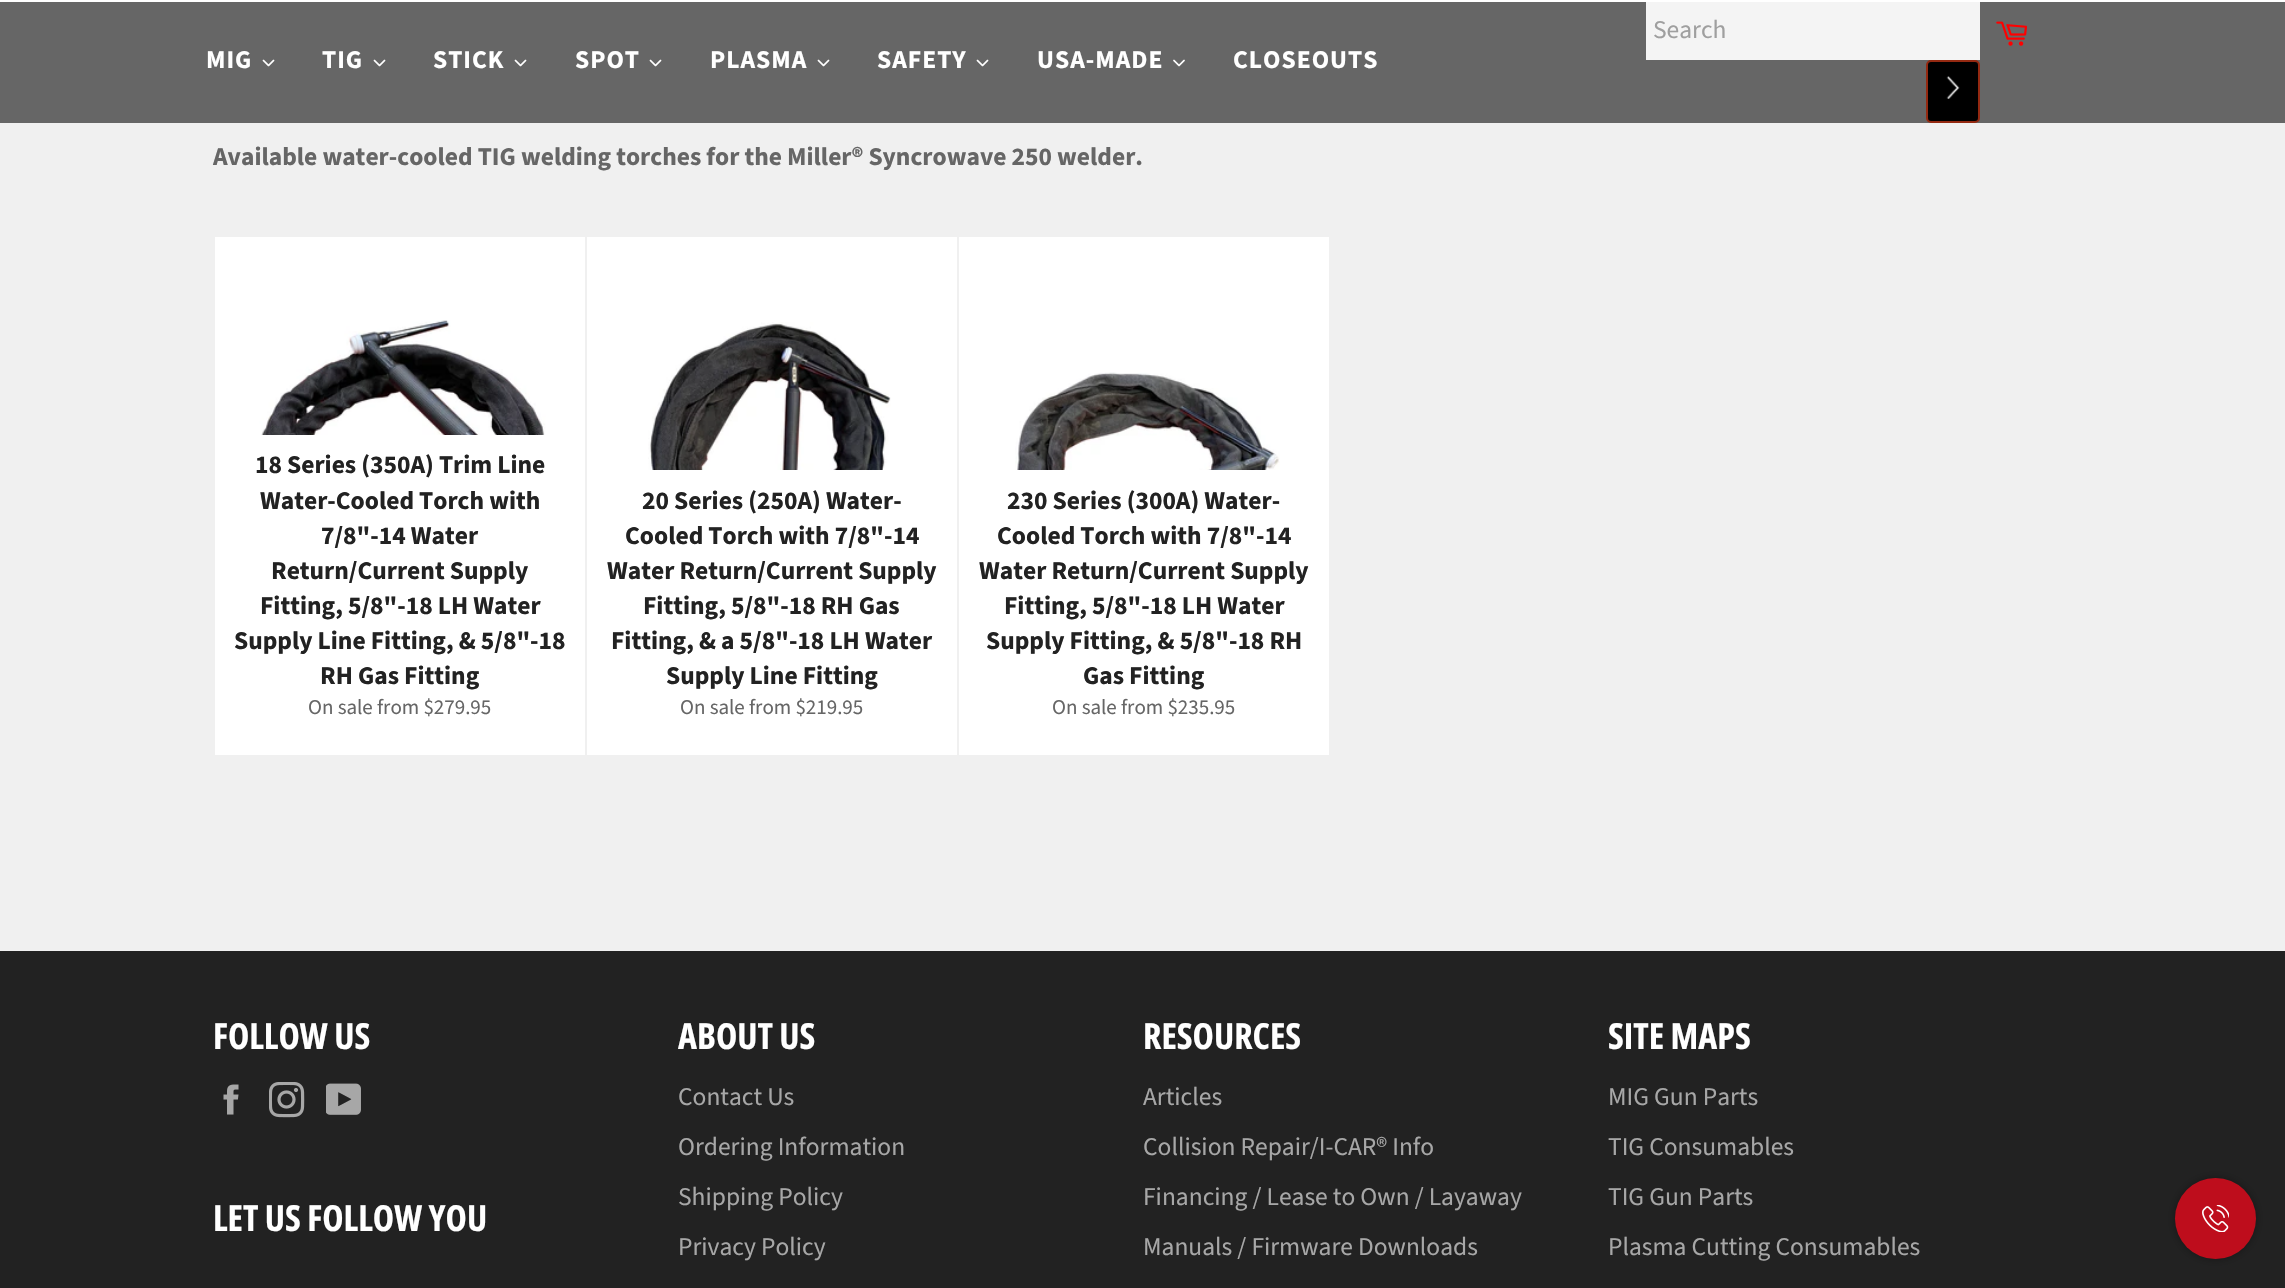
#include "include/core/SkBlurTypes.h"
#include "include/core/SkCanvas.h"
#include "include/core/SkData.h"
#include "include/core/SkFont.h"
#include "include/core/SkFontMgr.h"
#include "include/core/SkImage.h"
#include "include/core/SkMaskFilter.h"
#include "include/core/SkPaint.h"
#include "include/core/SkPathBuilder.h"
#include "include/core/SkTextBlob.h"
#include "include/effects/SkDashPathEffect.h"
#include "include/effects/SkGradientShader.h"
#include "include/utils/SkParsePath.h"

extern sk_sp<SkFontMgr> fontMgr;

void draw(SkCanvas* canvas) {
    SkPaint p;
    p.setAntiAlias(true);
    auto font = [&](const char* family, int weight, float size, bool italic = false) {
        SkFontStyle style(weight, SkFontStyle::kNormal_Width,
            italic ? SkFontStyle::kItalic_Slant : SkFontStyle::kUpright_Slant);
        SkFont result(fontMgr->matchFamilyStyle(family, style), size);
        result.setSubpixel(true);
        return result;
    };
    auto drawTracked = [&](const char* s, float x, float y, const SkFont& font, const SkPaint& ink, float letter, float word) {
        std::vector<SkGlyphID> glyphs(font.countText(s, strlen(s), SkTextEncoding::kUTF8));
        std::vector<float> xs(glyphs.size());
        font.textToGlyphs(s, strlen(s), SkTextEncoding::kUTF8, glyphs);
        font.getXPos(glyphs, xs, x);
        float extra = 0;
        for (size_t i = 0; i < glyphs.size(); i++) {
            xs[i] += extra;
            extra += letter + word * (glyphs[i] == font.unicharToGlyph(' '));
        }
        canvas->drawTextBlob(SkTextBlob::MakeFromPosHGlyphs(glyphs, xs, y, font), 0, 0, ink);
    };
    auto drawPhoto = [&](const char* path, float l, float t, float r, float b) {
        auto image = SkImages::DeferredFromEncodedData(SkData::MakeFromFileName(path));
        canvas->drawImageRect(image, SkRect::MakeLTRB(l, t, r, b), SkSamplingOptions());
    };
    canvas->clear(0xFFF0F0F0);
    {
        const struct { float l, t, r, b; SkColor color; } items[] = {
            {0, 0, 2285, 2, 0xFFFFFFFF},
            {0, 2, 2285, 123, 0xFF666666},
            {1646, 2, 1980, 60, 0xFFF4F4F4},
        };
        for (auto [l, t, r, b, color] : items) {
            p.setColor(color);
            canvas->drawRect(SkRect::MakeLTRB(l, t, r, b), p);
        }
    }
    auto font1 = font("Source Sans Pro", 400, 25.5f);
    p.setColor(0xFF9F9F9F);
    canvas->drawString("Search", 1653, 38, font1, p);
    p.setColor(0xFF000000);
    canvas->drawRoundRect(SkRect::MakeLTRB(1927, 61, 1979, 122), 4, 4, p);
    p.setStyle(SkPaint::kStroke_Style);
    p.setStrokeWidth(2);
    p.setColor(0xFF942911);
    canvas->drawRoundRect(SkRect::MakeLTRB(1927, 61, 1979, 122), 4, 4, p);
    drawPhoto("media/1.png", 1946, 76, 1960, 99);
    drawPhoto("media/2.png", 1996, 21, 2027, 46);
    auto font2 = font("Source Sans Pro", 700, 25.5f);
    p.setStyle(SkPaint::kFill_Style);
    p.setColor(0xFFFFFFFF);
    drawTracked("MIG", 206, 68, font2, p, 1, 0);
    drawPhoto("media/3.png", 262, 59, 275, 67);
    drawTracked("TIG", 322, 68, font2, p, 1, 0);
    drawPhoto("media/3.png", 373, 59, 386, 67);
    drawTracked("STICK", 433, 68, font2, p, 1, 0);
    drawPhoto("media/3.png", 514, 59, 527, 67);
    drawTracked("SPOT", 575, 68, font2, p, 1, 0);
    drawPhoto("media/3.png", 649, 59, 662, 67);
    drawTracked("PLASMA", 710, 68, font2, p, 1, 0);
    drawPhoto("media/3.png", 817, 59, 830, 67);
    drawTracked("SAFETY", 877, 68, font2, p, 1, 0);
    drawPhoto("media/3.png", 976, 59, 989, 67);
    drawTracked("USA-MADE", 1037, 68, font2, p, 1, 0);
    drawPhoto("media/4.png", 1173, 59, 1185, 67);
    drawTracked("CLOSEOUTS", 1233, 68, font2, p, 1, 0);
    p.setColor(0xFF666666);
    canvas->drawString("Available water-cooled TIG welding torches for the Miller® Syncrowave 250 welder.", 213, 165, font2, p);
    p.setColor(0xFFFFFFFF);
    canvas->drawRect(SkRect::MakeLTRB(215, 237, 585, 755), p);
    drawPhoto("media/5.png", 257, 320, 548, 435);
    p.setColor(0xFF222222);
    {
        const struct { const char* s; float x, y; } items[] = {
            {"18 Series (350A) Trim Line", 255, 473},
            {"Water-Cooled Torch with", 260, 509},
            {"7/8\"-14 Water", 321, 544},
            {"Return/Current Supply", 271, 579},
            {"Fitting, 5/8\"-18 LH Water", 260, 614},
            {"Supply Line Fitting, & 5/8\"-18", 234, 649},
            {"RH Gas Fitting", 320, 684},
        };
        for (auto [s, x, y] : items) {
            canvas->drawString(s, x, y, font2, p);
        }
    }
    auto font3 = font("Source Sans Pro", 400, 21);
    p.setColor(0xFF666666);
    canvas->drawString("On sale from $279.95", 308, 714, font3, p);
    p.setColor(0xFFFFFFFF);
    canvas->drawRect(SkRect::MakeLTRB(587, 237, 957, 755), p);
    drawPhoto("media/6.png", 648, 322, 891, 470);
    p.setColor(0xFF222222);
    {
        const struct { const char* s; float x, y; } items[] = {
            {"20 Series (250A) Water-", 642, 509},
            {"Cooled Torch with 7/8\"-14", 625, 544},
            {"Water Return/Current Supply", 607, 579},
            {"Fitting, 5/8\"-18 RH Gas", 643, 614},
            {"Fitting, & a 5/8\"-18 LH Water", 611, 649},
            {"Supply Line Fitting", 666, 684},
        };
        for (auto [s, x, y] : items) {
            canvas->drawString(s, x, y, font2, p);
        }
    }
    p.setColor(0xFF666666);
    canvas->drawString("On sale from $219.95", 680, 714, font3, p);
    p.setColor(0xFFFFFFFF);
    canvas->drawRect(SkRect::MakeLTRB(959, 237, 1329, 755), p);
    drawPhoto("media/7.png", 1015, 372, 1280, 470);
    p.setColor(0xFF222222);
    {
        const struct { const char* s; float x, y; } items[] = {
            {"230 Series (300A) Water-", 1007, 509},
            {"Cooled Torch with 7/8\"-14", 997, 544},
            {"Water Return/Current Supply", 979, 579},
            {"Fitting, 5/8\"-18 LH Water", 1004, 614},
            {"Supply Fitting, & 5/8\"-18 RH", 986, 649},
            {"Gas Fitting", 1083, 684},
        };
        for (auto [s, x, y] : items) {
            canvas->drawString(s, x, y, font2, p);
        }
    }
    p.setColor(0xFF666666);
    canvas->drawString("On sale from $235.95", 1052, 714, font3, p);
    p.setColor(0xFF222222);
    canvas->drawRect(SkRect::MakeLTRB(0, 951, 2285, 1288), p);
    auto font4 = font("Open Sans Condensed", 700, 36);
    p.setColor(0xFFFFFFFF);
    canvas->drawString("FOLLOW US", 213, 1049, font4, p);
    drawPhoto("media/8.png", 223, 1084, 239, 1115);
    drawPhoto("media/9.png", 269, 1082, 305, 1118);
    drawPhoto("media/10.png", 326, 1083, 361, 1115);
    canvas->drawString("LET US FOLLOW YOU", 213, 1231, font4, p);
    canvas->drawString("ABOUT US", 678, 1049, font4, p);
    p.setColor(0xFFA7A7A7);
    {
        const struct { const char* s; float x, y; } items[] = {
            {"Contact Us", 678, 1105},
            {"Ordering Information", 678, 1155},
            {"Shipping Policy", 678, 1205},
            {"Privacy Policy", 678, 1255},
        };
        for (auto [s, x, y] : items) {
            canvas->drawString(s, x, y, font1, p);
        }
    }
    p.setColor(0xFFFFFFFF);
    canvas->drawString("RESOURCES", 1143, 1049, font4, p);
    p.setColor(0xFFA7A7A7);
    {
        const struct { const char* s; float x, y; } items[] = {
            {"Articles", 1143, 1105},
            {"Collision Repair/I-CAR® Info", 1143, 1155},
            {"Financing / Lease to Own / Layaway", 1143, 1205},
            {"Manuals / Firmware Downloads", 1143, 1255},
        };
        for (auto [s, x, y] : items) {
            canvas->drawString(s, x, y, font1, p);
        }
    }
    p.setColor(0xFFFFFFFF);
    canvas->drawString("SITE MAPS", 1608, 1049, font4, p);
    p.setColor(0xFFA7A7A7);
    {
        const struct { const char* s; float x, y; } items[] = {
            {"MIG Gun Parts", 1608, 1105},
            {"TIG Consumables", 1608, 1155},
            {"TIG Gun Parts", 1608, 1205},
            {"Plasma Cutting Consumables", 1608, 1255},
        };
        for (auto [s, x, y] : items) {
            canvas->drawString(s, x, y, font1, p);
        }
    }
    p.setColor(0xFF000000);
    p.setMaskFilter(SkMaskFilter::MakeBlur(kNormal_SkBlurStyle, 7.5f));
    canvas->drawRoundRect(SkRect::MakeLTRB(2181, 1184, 2250, 1253), 34.5f, 34.5f, p);
    p.setMaskFilter(nullptr);
    p.setColor(0xFFBE0D1C);
    canvas->drawCircle(2215.5f, 1218.5f, 40.5f, p);
    drawPhoto("media/11.png", 2202, 1205, 2229, 1232);
}
